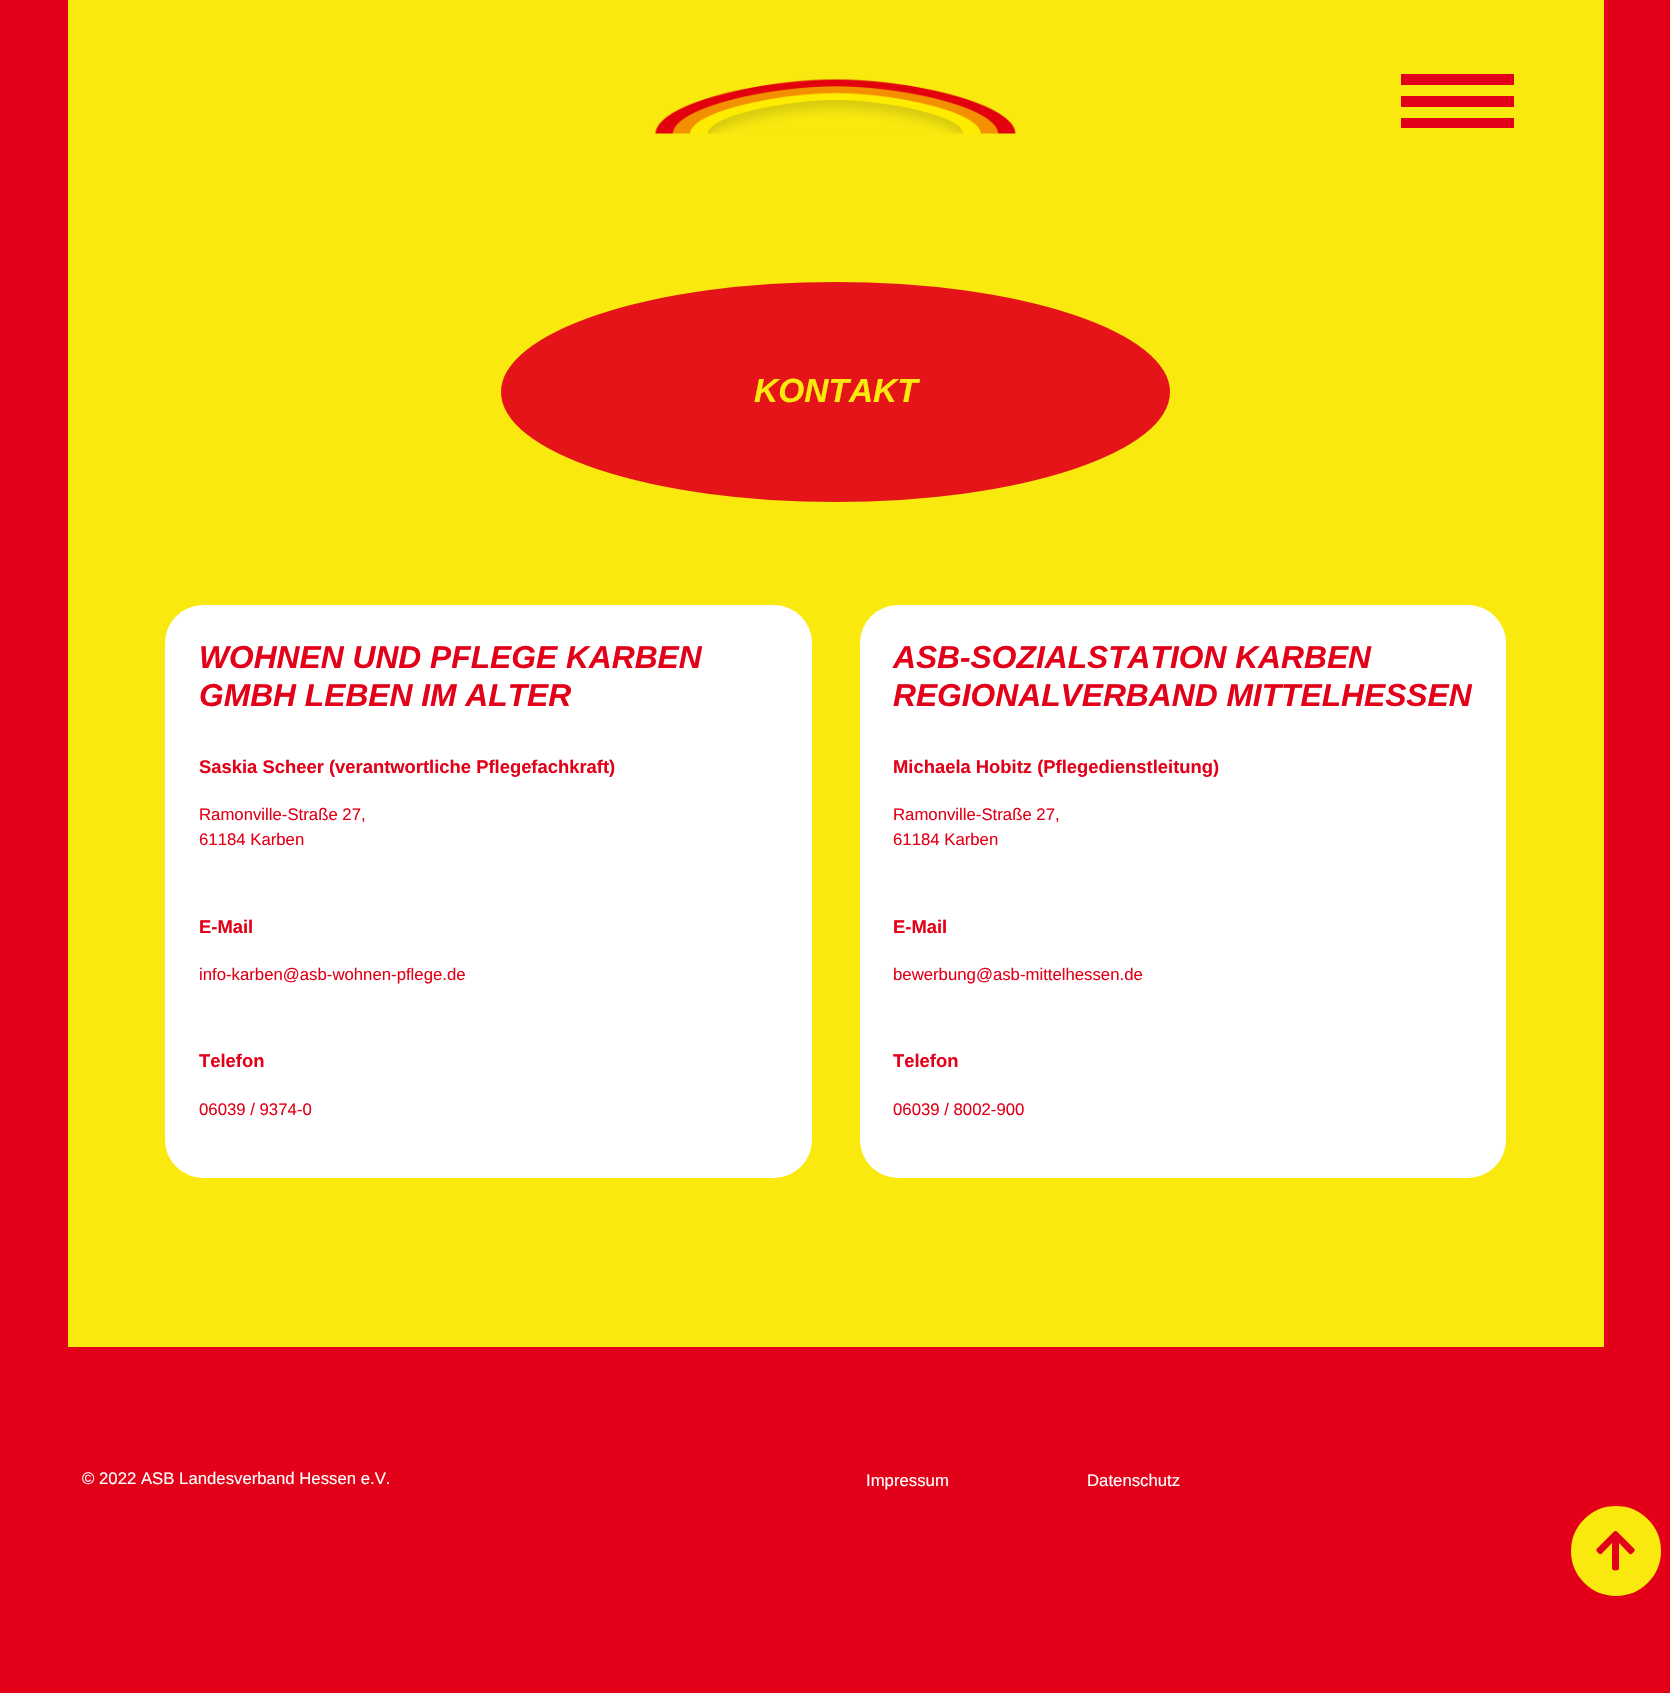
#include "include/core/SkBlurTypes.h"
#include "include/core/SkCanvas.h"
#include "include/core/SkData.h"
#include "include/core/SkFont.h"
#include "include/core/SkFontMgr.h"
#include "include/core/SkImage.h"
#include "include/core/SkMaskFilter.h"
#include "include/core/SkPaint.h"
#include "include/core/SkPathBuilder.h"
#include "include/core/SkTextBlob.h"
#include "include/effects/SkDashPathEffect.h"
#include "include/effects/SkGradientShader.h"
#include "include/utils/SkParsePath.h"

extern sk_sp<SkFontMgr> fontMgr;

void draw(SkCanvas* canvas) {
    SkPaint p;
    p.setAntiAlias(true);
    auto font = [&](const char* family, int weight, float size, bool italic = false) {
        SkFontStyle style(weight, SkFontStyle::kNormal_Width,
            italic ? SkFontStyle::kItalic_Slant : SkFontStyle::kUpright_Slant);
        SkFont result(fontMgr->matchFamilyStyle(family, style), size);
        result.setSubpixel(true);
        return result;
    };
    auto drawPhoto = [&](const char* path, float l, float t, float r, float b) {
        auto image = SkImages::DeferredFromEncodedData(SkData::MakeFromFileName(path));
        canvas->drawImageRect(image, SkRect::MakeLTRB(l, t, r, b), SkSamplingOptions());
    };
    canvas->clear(0xFFE30119);
    p.setColor(0xFFF9E90F);
    canvas->drawRect(SkRect::MakeLTRB(68, 0, 1604, 1347), p);
    drawPhoto("media/1.png", 655, 79, 1016, 134);
    {
        const struct { float l, t, r, b; SkColor color; } items[] = {
            {1401, 74, 1514, 85, 0xFFE30119},
            {1401, 96, 1514, 107, 0xFFE30119},
            {1401, 118, 1514, 128, 0xFFE30119},
        };
        for (auto [l, t, r, b, color] : items) {
            p.setColor(color);
            canvas->drawRect(SkRect::MakeLTRB(l, t, r, b), p);
        }
    }
    p.setColor(0xFFF9E90F);
    canvas->drawCircle(1616, 1551, 46.5f, p);
    p.setStyle(SkPaint::kStroke_Style);
    p.setStrokeWidth(3);
    p.setColor(0xFFE30119);
    canvas->drawCircle(1616, 1551, 46.5f, p);
    drawPhoto("media/2.png", 1596, 1531, 1635, 1571);
    p.setStyle(SkPaint::kFill_Style);
    p.setColor(0xFFE51418);
    canvas->drawOval(SkRect::MakeLTRB(501, 282, 1170, 502), p);
    auto font1 = font("Liberation Sans", 700, 33.5f, true);
    p.setColor(0xFFF9E90F);
    canvas->drawString("KONTAKT", 754, 402, font1, p);
    p.setColor(0xFFFFFFFF);
    canvas->drawRoundRect(SkRect::MakeLTRB(165, 605, 812, 1178), 38, 38, p);
    auto font2 = font("Liberation Sans", 700, 31.75f, true);
    p.setColor(0xFFE30119);
    canvas->drawString("WOHNEN UND PFLEGE KARBEN", 199, 668, font2, p);
    canvas->drawString("GMBH LEBEN IM ALTER", 199, 706, font2, p);
    auto font3 = font("Liberation Sans", 700, 18.4f);
    canvas->drawString("Saskia Scheer (verantwortliche Pflegefachkraft)", 199, 773, font3, p);
    auto font4 = font("Liberation Sans", 400, 16.75f);
    canvas->drawString("Ramonville-Straße 27,", 199, 820, font4, p);
    canvas->drawString("61184 Karben", 199, 845, font4, p);
    canvas->drawString("E-Mail", 199, 933, font3, p);
    canvas->drawString("info-karben@asb-wohnen-pflege.de", 199, 980, font4, p);
    canvas->drawString("Telefon", 199, 1067, font3, p);
    canvas->drawString("06039 / 9374-0", 199, 1115, font4, p);
    p.setColor(0xFFFFFFFF);
    canvas->drawRoundRect(SkRect::MakeLTRB(860, 605, 1506, 1178), 38, 38, p);
    p.setColor(0xFFE30119);
    canvas->drawString("ASB-SOZIALSTATION KARBEN", 893, 668, font2, p);
    canvas->drawString("REGIONALVERBAND MITTELHESSEN", 893, 706, font2, p);
    canvas->drawString("Michaela Hobitz (Pflegedienstleitung)", 893, 773, font3, p);
    canvas->drawString("Ramonville-Straße 27,", 893, 820, font4, p);
    canvas->drawString("61184 Karben", 893, 845, font4, p);
    canvas->drawString("E-Mail", 893, 933, font3, p);
    canvas->drawString("bewerbung@asb-mittelhessen.de", 893, 980, font4, p);
    canvas->drawString("Telefon", 893, 1067, font3, p);
    canvas->drawString("06039 / 8002-900", 893, 1115, font4, p);
    p.setColor(0xFFFFFFFF);
    {
        const struct { const char* s; float x, y; } items[] = {
            {"© 2022 ASB Landesverband Hessen e.V.", 82, 1484},
            {"Impressum", 866, 1486},
            {"Datenschutz", 1087, 1486},
        };
        for (auto [s, x, y] : items) {
            canvas->drawString(s, x, y, font4, p);
        }
    }
}
